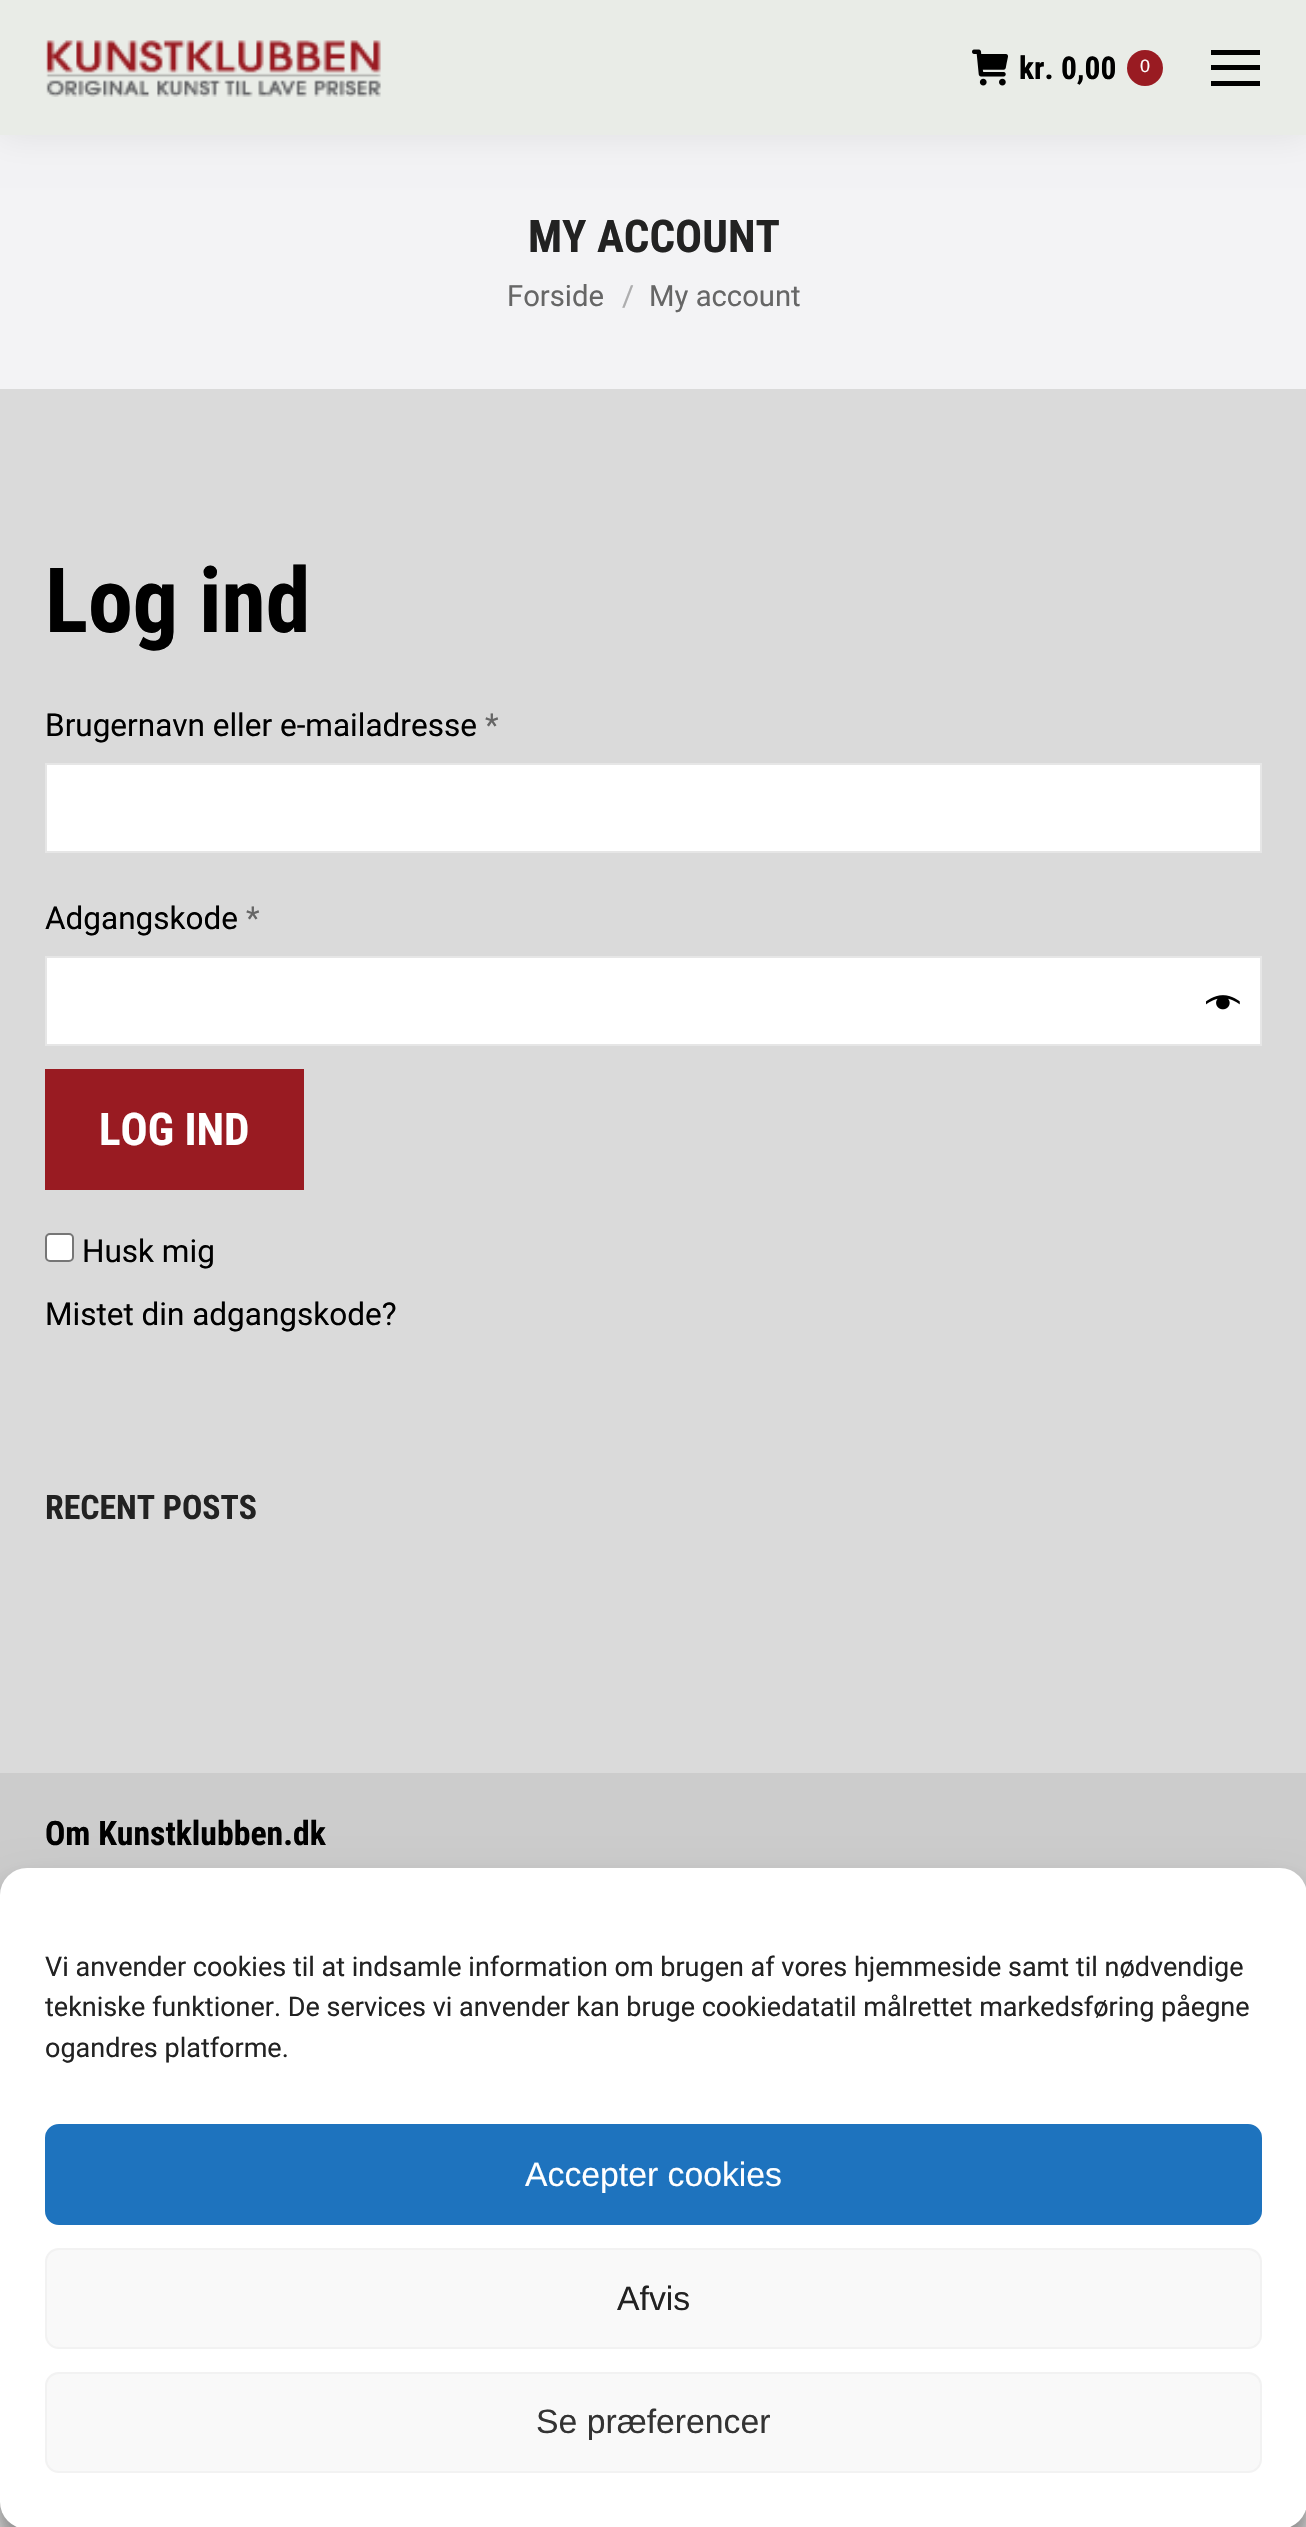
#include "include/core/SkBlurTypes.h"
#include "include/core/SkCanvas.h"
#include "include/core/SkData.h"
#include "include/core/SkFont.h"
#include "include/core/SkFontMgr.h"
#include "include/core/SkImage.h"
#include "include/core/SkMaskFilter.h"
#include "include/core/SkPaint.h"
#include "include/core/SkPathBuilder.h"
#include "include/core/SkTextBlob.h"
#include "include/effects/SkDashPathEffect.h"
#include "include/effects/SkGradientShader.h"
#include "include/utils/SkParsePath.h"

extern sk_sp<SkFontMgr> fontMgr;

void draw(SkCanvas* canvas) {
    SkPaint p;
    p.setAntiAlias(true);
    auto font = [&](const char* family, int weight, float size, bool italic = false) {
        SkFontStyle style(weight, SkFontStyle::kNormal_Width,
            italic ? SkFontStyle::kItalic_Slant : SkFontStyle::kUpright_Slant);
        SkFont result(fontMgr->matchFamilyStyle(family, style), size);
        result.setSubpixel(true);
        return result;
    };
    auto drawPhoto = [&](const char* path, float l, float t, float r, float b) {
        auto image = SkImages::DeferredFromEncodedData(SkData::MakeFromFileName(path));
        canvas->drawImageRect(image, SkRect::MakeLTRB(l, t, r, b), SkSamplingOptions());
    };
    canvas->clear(0xFFDADADA);
    p.setColor(0xFFF3F3F5);
    canvas->drawRect(SkRect::MakeLTRB(0, 135, 1306, 389), p);
    p.setColor(0x12000000);
    p.setMaskFilter(SkMaskFilter::MakeBlur(kNormal_SkBlurStyle, 17));
    canvas->drawRect(SkRect::MakeLTRB(-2, -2, 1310, 137), p);
    p.setMaskFilter(nullptr);
    p.setColor(0xFFE9ECE7);
    canvas->drawRect(SkRect::MakeLTRB(0, 0, 1306, 135), p);
    drawPhoto("media/1.png", 46, 40, 381, 97);
    drawPhoto("media/2.png", 972, 49, 1008, 86);
    auto font1 = font("Roboto Condensed", 700, 31.5f);
    p.setColor(0xFF000000);
    canvas->drawString("kr. 0,00", 1019, 79, font1, p);
    p.setColor(0xFF991B22);
    canvas->drawCircle(1145, 68, 18, p);
    auto font2 = font("Liberation Sans", 400, 18);
    p.setColor(0xFFFFFFFF);
    canvas->drawString("0", 1140, 72, font2, p);
    {
        const struct { float l, t, r, b; SkColor color; } items[] = {
            {1211, 50, 1260, 55, 0xFF000000},
            {1211, 65, 1260, 70, 0xFF000000},
            {1211, 81, 1260, 86, 0xFF000000},
        };
        for (auto [l, t, r, b, color] : items) {
            p.setColor(color);
            canvas->drawRect(SkRect::MakeLTRB(l, t, r, b), p);
        }
    }
    auto font3 = font("Roboto Condensed", 700, 45);
    p.setColor(0xFF222222);
    canvas->drawString("MY ACCOUNT", 528, 252, font3, p);
    auto font4 = font("Roboto", 400, 29.25f);
    p.setColor(0xFF666666);
    canvas->drawString("Forside", 507, 306, font4, p);
    p.setColor(0xFFADADAE);
    canvas->drawString("/", 622, 306, font4, p);
    p.setColor(0xFF666666);
    canvas->drawString("My account", 649, 306, font4, p);
    auto font5 = font("Roboto Condensed", 700, 90);
    p.setColor(0xFF000000);
    canvas->drawString("Log ind", 45, 632, font5, p);
    auto font6 = font("Roboto", 400, 31.5f);
    canvas->drawString("Brugernavn eller e-mailadresse", 45, 736, font6, p);
    p.setColor(0xFF666666);
    canvas->drawString("*", 485, 736, font6, p);
    p.setColor(0xFFFFFFFF);
    canvas->drawRect(SkRect::MakeLTRB(46, 764, 1261, 852), p);
    p.setStyle(SkPaint::kStroke_Style);
    p.setStrokeWidth(2);
    p.setColor(0xFFE6E6E6);
    canvas->drawRect(SkRect::MakeLTRB(46, 764, 1261, 852), p);
    p.setStyle(SkPaint::kFill_Style);
    p.setColor(0xFF000000);
    canvas->drawString("Adgangskode", 45, 929, font6, p);
    p.setColor(0xFF666666);
    canvas->drawString("*", 246, 929, font6, p);
    p.setColor(0xFFFFFFFF);
    canvas->drawRect(SkRect::MakeLTRB(46, 957, 1261, 1045), p);
    p.setStyle(SkPaint::kStroke_Style);
    p.setColor(0xFFE6E6E6);
    canvas->drawRect(SkRect::MakeLTRB(46, 957, 1261, 1045), p);
    drawPhoto("media/3.png", 1206, 995, 1240, 1010);
    p.setStyle(SkPaint::kFill_Style);
    p.setColor(0xFF991B22);
    canvas->drawRect(SkRect::MakeLTRB(45, 1069, 304, 1190), p);
    p.setColor(0xFFFFFFFF);
    canvas->drawString("LOG IND", 99, 1145, font3, p);
    canvas->drawRoundRect(SkRect::MakeLTRB(46, 1234, 73, 1261), 4, 4, p);
    p.setStyle(SkPaint::kStroke_Style);
    p.setColor(0xFF767676);
    canvas->drawRoundRect(SkRect::MakeLTRB(46, 1234, 73, 1261), 4, 4, p);
    p.setStyle(SkPaint::kFill_Style);
    p.setColor(0xFF000000);
    canvas->drawString("Husk mig", 82, 1262, font6, p);
    canvas->drawString("Mistet din adgangskode?", 45, 1325, font6, p);
    auto font7 = font("Roboto Condensed", 700, 33.75f);
    p.setColor(0xFF222222);
    canvas->drawString("RECENT POSTS", 45, 1519, font7, p);
    p.setColor(0xFFCCCCCC);
    canvas->drawRect(SkRect::MakeLTRB(0, 1773, 1306, 1895), p);
    p.setColor(0xFF000000);
    canvas->drawString("Om Kunstklubben.dk", 45, 1845, font7, p);
    p.setColor(0x3B000000);
    p.setMaskFilter(SkMaskFilter::MakeBlur(kNormal_SkBlurStyle, 7));
    canvas->drawRoundRect(SkRect::MakeLTRB(0, 1881, 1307, 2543), 27, 27, p);
    p.setMaskFilter(nullptr);
    p.setColor(0x30000000);
    p.setMaskFilter(SkMaskFilter::MakeBlur(kNormal_SkBlurStyle, 22.5f));
    canvas->drawRoundRect(SkRect::MakeLTRB(0, 1890, 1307, 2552), 27, 27, p);
    p.setMaskFilter(nullptr);
    p.setColor(0xFFFFFFFF);
    canvas->drawRoundRect(SkRect::MakeLTRB(0, 1868, 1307, 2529), 27, 27, p);
    auto font8 = font("Roboto", 400, 27);
    p.setColor(0xFF222222);
    {
        const struct { const char* s; float x, y; } items[] = {
            {"Vi anvender cookies til at indsamle information om brugen af vores hjemmeside samt til nødvendige", 45, 1976},
            {"tekniske funktioner. De services vi anvender kan bruge cookiedata til målrettet markedsføring på egne", 45, 2016},
            {"og andres platforme.", 45, 2057},
        };
        for (auto [s, x, y] : items) {
            canvas->drawString(s, x, y, font8, p);
        }
    }
    p.setColor(0xFF1E73BE);
    canvas->drawRoundRect(SkRect::MakeLTRB(46, 2125, 1261, 2224), 13, 13, p);
    p.setStyle(SkPaint::kStroke_Style);
    canvas->drawRoundRect(SkRect::MakeLTRB(46, 2125, 1261, 2224), 13, 13, p);
    auto font9 = font("Liberation Sans", 400, 33.75f);
    p.setStyle(SkPaint::kFill_Style);
    p.setColor(0xFFFFFFFF);
    canvas->drawString("Accepter cookies", 525, 2186, font9, p);
    p.setColor(0xFFF9F9F9);
    canvas->drawRoundRect(SkRect::MakeLTRB(46, 2249, 1261, 2348), 13, 13, p);
    p.setStyle(SkPaint::kStroke_Style);
    p.setColor(0xFFF2F2F2);
    canvas->drawRoundRect(SkRect::MakeLTRB(46, 2249, 1261, 2348), 13, 13, p);
    p.setStyle(SkPaint::kFill_Style);
    p.setColor(0xFF222222);
    canvas->drawString("Afvis", 617, 2310, font9, p);
    p.setColor(0xFFF9F9F9);
    canvas->drawRoundRect(SkRect::MakeLTRB(46, 2373, 1261, 2472), 13, 13, p);
    p.setStyle(SkPaint::kStroke_Style);
    p.setColor(0xFFF2F2F2);
    canvas->drawRoundRect(SkRect::MakeLTRB(46, 2373, 1261, 2472), 13, 13, p);
    p.setStyle(SkPaint::kFill_Style);
    p.setColor(0xFF333333);
    canvas->drawString("Se præferencer", 536, 2433, font9, p);
}
